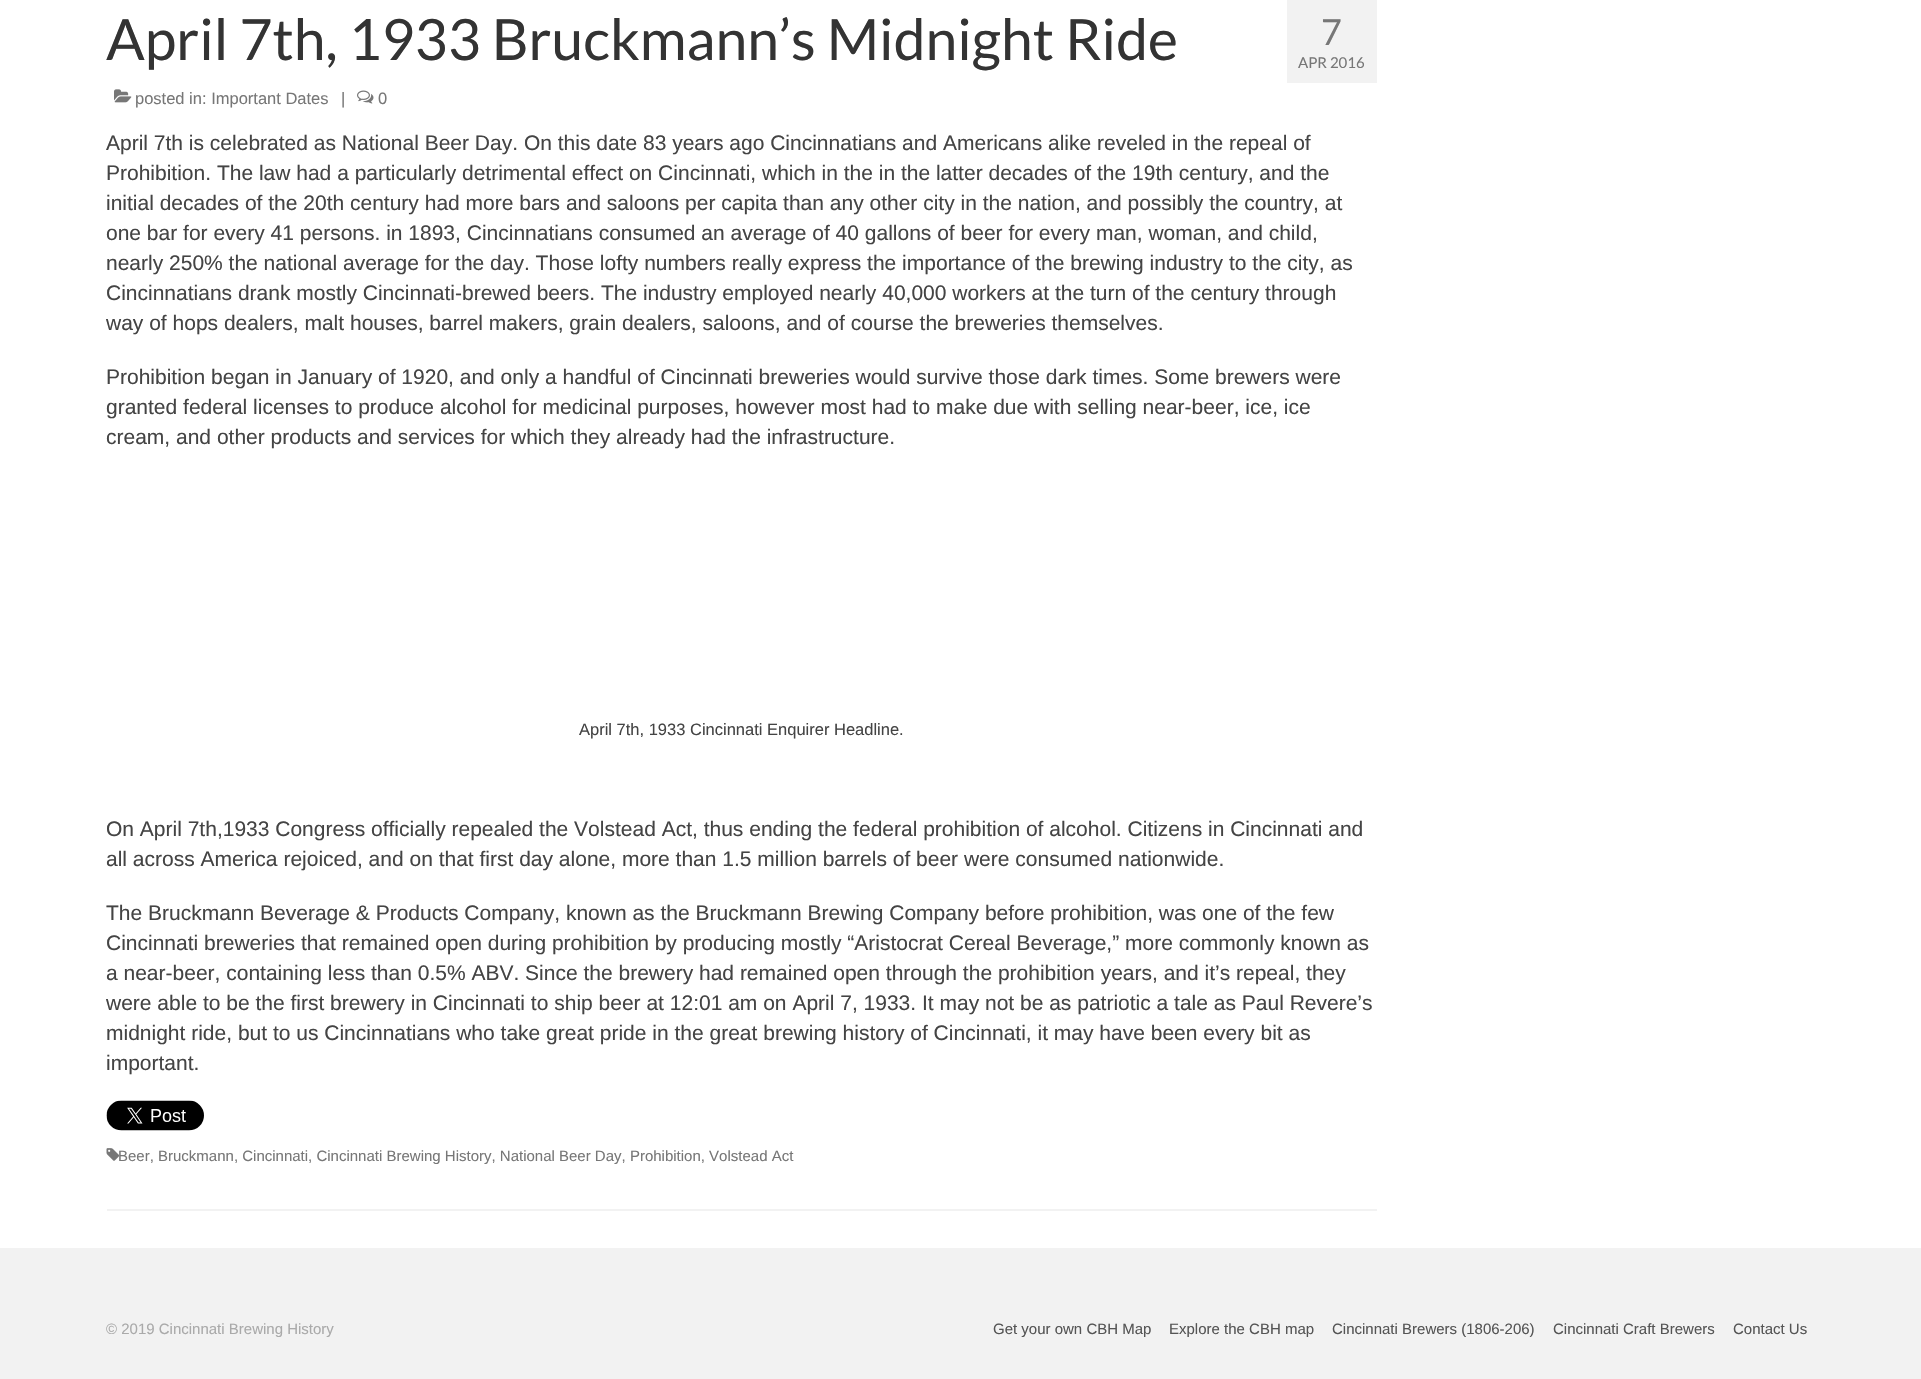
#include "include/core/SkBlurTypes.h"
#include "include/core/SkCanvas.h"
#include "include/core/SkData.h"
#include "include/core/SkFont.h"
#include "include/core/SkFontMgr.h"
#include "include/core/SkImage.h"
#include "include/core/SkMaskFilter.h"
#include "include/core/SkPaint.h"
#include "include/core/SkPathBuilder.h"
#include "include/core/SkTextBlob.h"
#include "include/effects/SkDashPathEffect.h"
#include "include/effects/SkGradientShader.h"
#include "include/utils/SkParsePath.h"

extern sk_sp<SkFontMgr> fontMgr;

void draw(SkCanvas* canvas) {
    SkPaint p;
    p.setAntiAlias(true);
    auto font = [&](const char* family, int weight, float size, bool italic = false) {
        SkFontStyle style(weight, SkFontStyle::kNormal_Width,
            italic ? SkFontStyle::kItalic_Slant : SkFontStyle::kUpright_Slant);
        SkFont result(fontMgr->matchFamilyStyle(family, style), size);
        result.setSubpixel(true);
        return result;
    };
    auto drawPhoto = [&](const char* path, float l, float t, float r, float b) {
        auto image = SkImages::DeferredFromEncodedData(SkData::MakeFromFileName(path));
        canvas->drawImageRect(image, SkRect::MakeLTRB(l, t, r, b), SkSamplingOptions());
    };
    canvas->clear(0xFFFFFFFF);
    auto font1 = font("Lato", 400, 57);
    p.setColor(0xFF333333);
    canvas->drawString("April 7th, 1933 Bruckmann’s Midnight Ride", 106, 60, font1, p);
    drawPhoto("media/1.png", 114, 89, 132, 103);
    auto font2 = font("Liberation Sans", 400, 16.5f);
    p.setColor(0xFF777777);
    canvas->drawString("posted in: Important Dates", 135, 104, font2, p);
    canvas->drawString("|", 341, 104, font2, p);
    drawPhoto("media/2.png", 357, 90, 374, 104);
    canvas->drawString("0", 378, 104, font2, p);
    p.setColor(0xFFF2F2F2);
    canvas->drawRect(SkRect::MakeLTRB(1287, 0, 1377, 83), p);
    auto font3 = font("Lato", 400, 36);
    p.setColor(0xFF777777);
    canvas->drawString("7", 1321, 45, font3, p);
    auto font4 = font("Lato", 400, 15);
    canvas->drawString("APR 2016", 1298, 68, font4, p);
    auto font5 = font("Liberation Sans", 400, 21);
    p.setColor(0xFF444444);
    {
        const struct { const char* s; float x, y; } items[] = {
            {"April 7th is celebrated as National Beer Day. On this date 83 years ago Cincinnatians and Americans alike reveled in the repeal of", 106, 150},
            {"Prohibition. The law had a particularly detrimental effect on Cincinnati, which in the in the latter decades of the 19th century, and the", 106, 180},
            {"initial decades of the 20th century had more bars and saloons per capita than any other city in the nation, and possibly the country, at", 106, 210},
            {"one bar for every 41 persons. in 1893, Cincinnatians consumed an average of 40 gallons of beer for every man, woman, and child,", 106, 240},
            {"nearly 250% the national average for the day. Those lofty numbers really express the importance of the brewing industry to the city, as", 106, 270},
            {"Cincinnatians drank mostly Cincinnati-brewed beers. The industry employed nearly 40,000 workers at the turn of the century through", 106, 300},
            {"way of hops dealers, malt houses, barrel makers, grain dealers, saloons, and of course the breweries themselves.", 106, 330},
            {"Prohibition began in January of 1920, and only a handful of Cincinnati breweries would survive those dark times. Some brewers were", 106, 384},
            {"granted federal licenses to produce alcohol for medicinal purposes, however most had to make due with selling near-beer, ice, ice", 106, 414},
            {"cream, and other products and services for which they already had the infrastructure.", 106, 444},
        };
        for (auto [s, x, y] : items) {
            canvas->drawString(s, x, y, font5, p);
        }
    }
    canvas->drawString("April 7th, 1933 Cincinnati Enquirer Headline.", 579, 735, font2, p);
    {
        const struct { const char* s; float x, y; } items[] = {
            {"On April 7th,1933 Congress officially repealed the Volstead Act, thus ending the federal prohibition of alcohol. Citizens in Cincinnati and", 106, 836},
            {"all across America rejoiced, and on that first day alone, more than 1.5 million barrels of beer were consumed nationwide.", 106, 866},
            {"The Bruckmann Beverage & Products Company, known as the Bruckmann Brewing Company before prohibition, was one of the few", 106, 920},
            {"Cincinnati breweries that remained open during prohibition by producing mostly “Aristocrat Cereal Beverage,” more commonly known as", 106, 950},
            {"a near-beer, containing less than 0.5% ABV. Since the brewery had remained open through the prohibition years, and it’s repeal, they", 106, 980},
            {"were able to be the first brewery in Cincinnati to ship beer at 12:01 am on April 7, 1933. It may not be as patriotic a tale as Paul Revere’s", 106, 1010},
            {"midnight ride, but to us Cincinnatians who take great pride in the great brewing history of Cincinnati, it may have been every bit as", 106, 1040},
            {"important.", 106, 1070},
        };
        for (auto [s, x, y] : items) {
            canvas->drawString(s, x, y, font5, p);
        }
    }
    drawPhoto("media/3.png", 106, 1100, 204, 1131);
    p.setColor(0xFFF2F2F2);
    canvas->drawRect(SkRect::MakeLTRB(107, 1209, 1377, 1211), p);
    drawPhoto("media/4.png", 106, 1148, 120, 1161);
    auto font6 = font("Liberation Sans", 400, 15);
    p.setColor(0xFF777777);
    canvas->drawString("Beer, Bruckmann, Cincinnati, Cincinnati Brewing History, National Beer Day, Prohibition, Volstead Act", 118, 1161, font6, p);
    p.setColor(0xFFF2F2F2);
    canvas->drawRect(SkRect::MakeLTRB(0, 1248, 1921, 1379), p);
    p.setColor(0xFFAAAAAA);
    canvas->drawString("© 2019 Cincinnati Brewing History", 106, 1334, font6, p);
    p.setColor(0xFF555555);
    {
        const struct { const char* s; float x, y; } items[] = {
            {"Get your own CBH Map", 993, 1334},
            {"Explore the CBH map", 1169, 1334},
            {"Cincinnati Brewers (1806-206)", 1332, 1334},
            {"Cincinnati Craft Brewers", 1553, 1334},
            {"Contact Us", 1733, 1334},
        };
        for (auto [s, x, y] : items) {
            canvas->drawString(s, x, y, font6, p);
        }
    }
}
